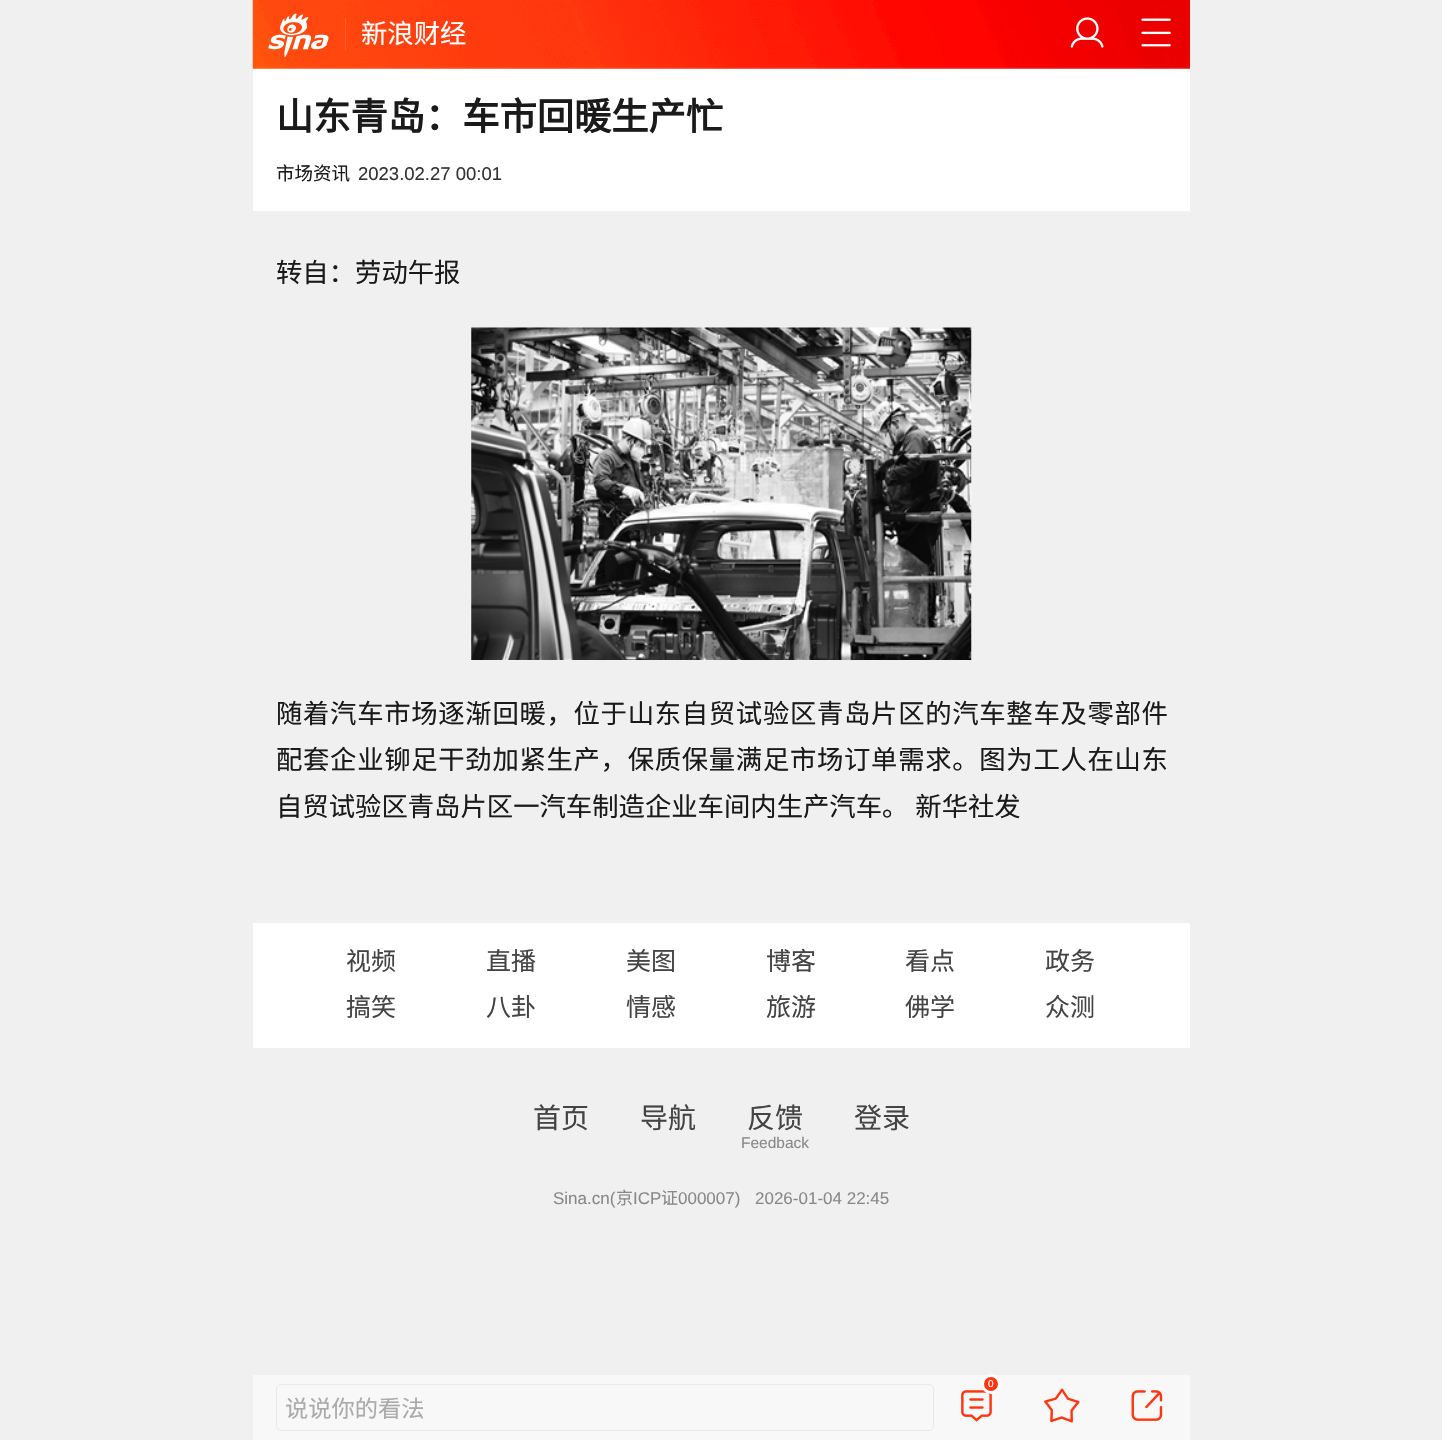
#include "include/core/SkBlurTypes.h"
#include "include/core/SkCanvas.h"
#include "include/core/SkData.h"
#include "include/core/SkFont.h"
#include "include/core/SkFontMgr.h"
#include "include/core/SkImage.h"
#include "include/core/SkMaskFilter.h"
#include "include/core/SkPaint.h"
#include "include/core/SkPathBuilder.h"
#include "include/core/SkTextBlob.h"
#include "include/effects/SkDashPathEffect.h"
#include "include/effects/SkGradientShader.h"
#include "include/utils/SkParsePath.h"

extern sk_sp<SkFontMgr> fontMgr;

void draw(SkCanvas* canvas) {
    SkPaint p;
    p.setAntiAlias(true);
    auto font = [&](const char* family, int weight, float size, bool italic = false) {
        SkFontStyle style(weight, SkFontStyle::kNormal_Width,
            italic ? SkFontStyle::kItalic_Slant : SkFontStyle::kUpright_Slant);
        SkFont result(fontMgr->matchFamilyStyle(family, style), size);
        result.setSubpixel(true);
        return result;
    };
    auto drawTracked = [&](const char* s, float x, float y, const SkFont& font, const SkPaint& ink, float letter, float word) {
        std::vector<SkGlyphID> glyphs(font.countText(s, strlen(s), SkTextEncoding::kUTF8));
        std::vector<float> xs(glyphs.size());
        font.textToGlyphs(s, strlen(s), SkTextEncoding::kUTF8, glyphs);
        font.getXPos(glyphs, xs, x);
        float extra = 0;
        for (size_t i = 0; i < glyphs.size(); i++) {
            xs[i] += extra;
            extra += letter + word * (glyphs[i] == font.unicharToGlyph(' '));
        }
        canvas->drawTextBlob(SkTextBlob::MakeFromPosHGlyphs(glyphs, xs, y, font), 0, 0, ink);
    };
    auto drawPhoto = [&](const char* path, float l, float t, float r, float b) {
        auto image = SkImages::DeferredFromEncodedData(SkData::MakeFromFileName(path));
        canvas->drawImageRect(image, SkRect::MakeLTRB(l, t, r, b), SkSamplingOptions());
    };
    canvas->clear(0xFFF0F0F0);
    drawPhoto("media/1.png", 252, 0, 1190, 69);
    drawPhoto("media/2.png", 268, 13, 329, 58);
    p.setColor(0x26FFFFFF);
    canvas->drawRect(SkRect::MakeLTRB(345, 18, 346, 50), p);
    auto font1 = font("Noto Sans CJK SC", 400, 26.35f);
    p.setColor(0xFFFFFFFF);
    canvas->drawString("新浪财经", 361, 43, font1, p);
    drawPhoto("media/3.png", 1070, 17, 1104, 48);
    drawPhoto("media/4.png", 1141, 18, 1171, 47);
    canvas->save();
    canvas->clipRect(SkRect::MakeLTRB(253, 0, 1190, 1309));
    p.setColor(0xFFF0F0F0);
    p.setMaskFilter(SkMaskFilter::MakeBlur(kNormal_SkBlurStyle, 3));
    canvas->drawRect(SkRect::MakeLTRB(253, 73, 1190, 865), p);
    p.setMaskFilter(nullptr);
    canvas->restore();
    p.setColor(0xFFFFFFFF);
    canvas->drawRect(SkRect::MakeLTRB(253, 69, 1190, 211), p);
    auto font2 = font("Noto Sans CJK SC", 700, 37.25f);
    p.setColor(0xFF1A1A1A);
    canvas->drawString("山东青岛：车市回暖生产忙", 276, 130, font2, p);
    auto font3 = font("Noto Sans CJK SC", 400, 18.5f);
    canvas->drawString("市场资讯", 276, 180, font3, p);
    auto font4 = font("Liberation Sans", 400, 18.5f);
    p.setColor(0xFF333333);
    canvas->drawString("2023.02.27 00:01", 358, 180, font4, p);
    p.setColor(0xFF1A1A1A);
    canvas->drawString("转自：劳动午报", 276, 282, font1, p);
    drawPhoto("media/5.png", 471, 327, 972, 660);
    drawTracked("随着汽车市场逐渐回暖，位于山东自贸试验区青岛片区的汽车整车及零部件", 276, 723, font1, p, 0.7f, 0);
    drawTracked("配套企业铆足干劲加紧生产，保质保量满足市场订单需求。图为工人在山东", 276, 769, font1, p, 0.7f, 0);
    drawTracked("自贸试验区青岛片区一汽车制造企业车间内生产汽车。 新华社发", 276, 816, font1, p, 0, 1);
    p.setColor(0xFFFFFFFF);
    canvas->drawRect(SkRect::MakeLTRB(253, 923, 1190, 1048), p);
    auto font5 = font("Noto Sans CJK SC", 400, 25);
    p.setColor(0xFF444444);
    {
        const struct { const char* s; float x, y; } items[] = {
            {"视频", 346, 970},
            {"直播", 486, 970},
            {"美图", 626, 970},
            {"博客", 766, 970},
            {"看点", 905, 970},
            {"政务", 1045, 970},
            {"搞笑", 346, 1016},
            {"八卦", 486, 1016},
            {"情感", 626, 1016},
            {"旅游", 766, 1016},
            {"佛学", 905, 1016},
            {"众测", 1045, 1016},
        };
        for (auto [s, x, y] : items) {
            canvas->drawString(s, x, y, font5, p);
        }
    }
    auto font6 = font("Noto Sans CJK SC", 400, 28);
    {
        const struct { const char* s; float x, y; } items[] = {
            {"首页", 533, 1128},
            {"导航", 640, 1128},
            {"反馈", 747, 1128},
        };
        for (auto [s, x, y] : items) {
            canvas->drawString(s, x, y, font6, p);
        }
    }
    auto font7 = font("Liberation Sans", 400, 15.5f);
    p.setColor(0xFF888888);
    canvas->drawString("Feedback", 741, 1148, font7, p);
    p.setColor(0xFF444444);
    canvas->drawString("登录", 854, 1128, font6, p);
    auto font8 = font("Liberation Sans", 400, 17);
    p.setColor(0xFF888888);
    canvas->drawString("Sina.cn(", 553, 1204, font8, p);
    auto font9 = font("Noto Sans CJK SC", 400, 17);
    canvas->drawString("京", 616, 1204, font9, p);
    canvas->drawString("ICP", 633, 1204, font8, p);
    canvas->drawString("证", 661, 1204, font9, p);
    canvas->drawString("000007)", 678, 1204, font8, p);
    canvas->drawString("2026-01-04 22:45", 755, 1204, font8, p);
    p.setColor(0xFFF8F8F8);
    canvas->drawRect(SkRect::MakeLTRB(253, 1375, 1190, 1440), p);
    drawPhoto("media/6.png", 961, 1390, 992, 1422);
    p.setColor(0xFFFE350E);
    canvas->drawCircle(991, 1384, 8.5f, p);
    p.setStyle(SkPaint::kStroke_Style);
    p.setStrokeWidth(3);
    p.setColor(0xFFFFFFFF);
    canvas->drawCircle(991, 1384, 8.5f, p);
    auto font10 = font("Liberation Sans", 400, 10);
    p.setStyle(SkPaint::kFill_Style);
    canvas->drawString("0", 988, 1387, font10, p);
    drawPhoto("media/7.png", 1044, 1388, 1080, 1423);
    drawPhoto("media/8.png", 1131, 1390, 1163, 1421);
    p.setStyle(SkPaint::kStroke_Style);
    p.setStrokeWidth(1);
    p.setColor(0xFFE9E9E9);
    canvas->drawRoundRect(SkRect::MakeLTRB(276.5f, 1384.5f, 933.5f, 1430.5f), 4.5f, 4.5f, p);
    auto font11 = font("Noto Sans CJK SC", 400, 23.25f);
    p.setStyle(SkPaint::kFill_Style);
    p.setColor(0xFFAAAAAA);
    canvas->drawString("说说你的看法", 285, 1417, font11, p);
}
